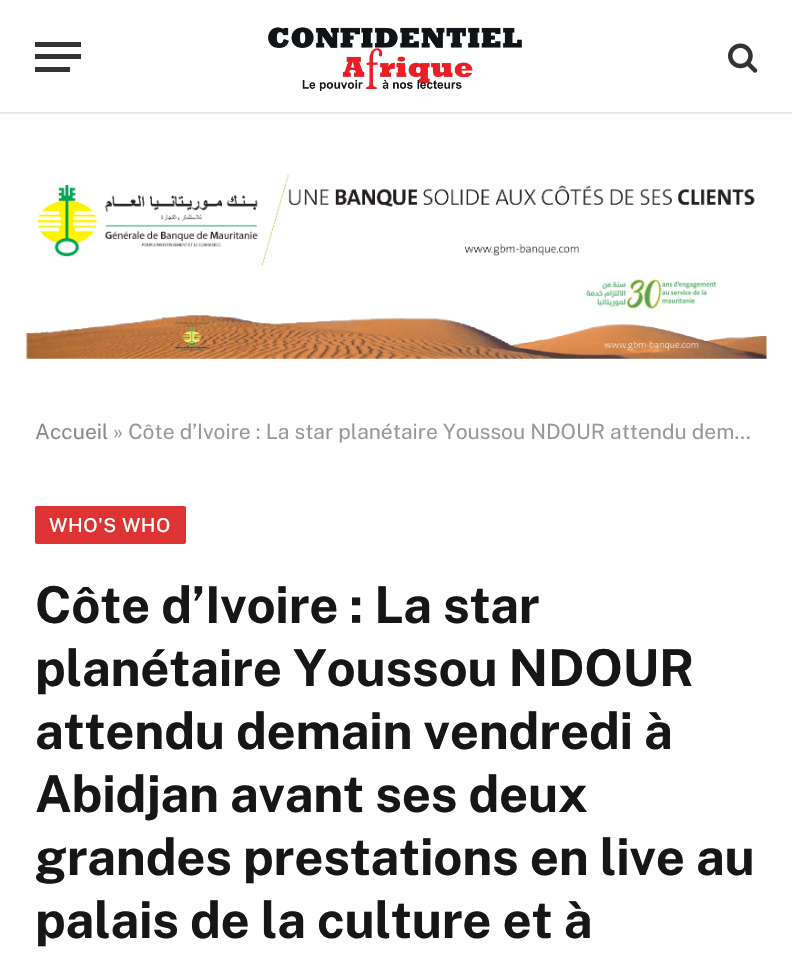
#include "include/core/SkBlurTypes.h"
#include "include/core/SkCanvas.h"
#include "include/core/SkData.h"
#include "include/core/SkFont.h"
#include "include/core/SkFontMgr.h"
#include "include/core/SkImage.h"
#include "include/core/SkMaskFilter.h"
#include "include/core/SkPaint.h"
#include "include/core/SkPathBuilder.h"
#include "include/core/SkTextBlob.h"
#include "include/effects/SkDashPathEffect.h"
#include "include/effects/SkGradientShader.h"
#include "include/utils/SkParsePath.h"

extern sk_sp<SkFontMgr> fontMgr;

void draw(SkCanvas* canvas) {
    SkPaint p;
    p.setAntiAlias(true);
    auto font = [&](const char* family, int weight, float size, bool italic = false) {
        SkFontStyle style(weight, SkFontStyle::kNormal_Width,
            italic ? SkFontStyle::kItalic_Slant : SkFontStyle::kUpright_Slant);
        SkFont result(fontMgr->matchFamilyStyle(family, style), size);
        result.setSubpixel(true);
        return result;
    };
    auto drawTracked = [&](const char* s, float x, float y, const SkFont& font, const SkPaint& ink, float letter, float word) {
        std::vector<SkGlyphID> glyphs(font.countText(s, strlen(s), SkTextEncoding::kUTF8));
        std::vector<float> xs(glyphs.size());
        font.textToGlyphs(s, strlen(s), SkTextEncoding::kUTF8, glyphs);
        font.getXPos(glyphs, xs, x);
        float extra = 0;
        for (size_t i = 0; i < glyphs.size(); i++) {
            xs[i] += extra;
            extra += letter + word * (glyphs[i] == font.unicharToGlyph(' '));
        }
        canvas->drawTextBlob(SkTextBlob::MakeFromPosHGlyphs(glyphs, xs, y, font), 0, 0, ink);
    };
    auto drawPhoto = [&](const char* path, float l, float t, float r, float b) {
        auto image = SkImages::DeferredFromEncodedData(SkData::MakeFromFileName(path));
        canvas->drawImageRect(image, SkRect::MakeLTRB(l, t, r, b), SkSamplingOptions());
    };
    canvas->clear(0xFFFFFFFF);
    {
        const struct { float l, t, r, b; SkColor color; } items[] = {
            {0, 112, 792, 114, 0xFFE8E8E8},
            {35, 67, 70, 72, 0xFF333333},
            {35, 42, 81, 47, 0xFF333333},
            {35, 54, 81, 59, 0xFF333333},
        };
        for (auto [l, t, r, b, color] : items) {
            p.setColor(color);
            canvas->drawRect(SkRect::MakeLTRB(l, t, r, b), p);
        }
    }
    drawPhoto("media/1.png", 268, 27, 522, 91);
    drawPhoto("media/2.png", 728, 43, 758, 73);
    drawPhoto("media/3.png", 37, 175, 755, 266);
    drawPhoto("media/4.png", 26, 278, 767, 359);
    auto font1 = font("Public Sans", 400, 21);
    p.setColor(0xFF8A8A8A);
    canvas->drawString("Accueil", 35, 439, font1, p);
    p.setColor(0xFF999999);
    canvas->drawString("» Côte d’Ivoire : La star planétaire Youssou NDOUR attendu dem…", 113, 439, font1, p);
    p.setColor(0xFFDD3333);
    canvas->drawRoundRect(SkRect::MakeLTRB(35, 506, 186, 544), 2, 2, p);
    auto font2 = font("Public Sans", 500, 19.25f);
    p.setColor(0xFFFFFFFF);
    drawTracked("WHO'S WHO", 49, 532, font2, p, 0.5f, 0);
    auto font3 = font("Public Sans", 700, 50.75f);
    p.setColor(0xFF161616);
    {
        const struct { const char* s; float x, y; } items[] = {
            {"Côte d’Ivoire : La star", 35, 623},
            {"planétaire Youssou NDOUR", 35, 686},
            {"attendu demain vendredi à", 35, 749},
            {"Abidjan avant ses deux", 35, 812},
            {"grandes prestations en live au", 35, 875},
            {"palais de la culture et à", 35, 938},
        };
        for (auto [s, x, y] : items) {
            drawTracked(s, x, y, font3, p, -0.25f, 0);
        }
    }
}
